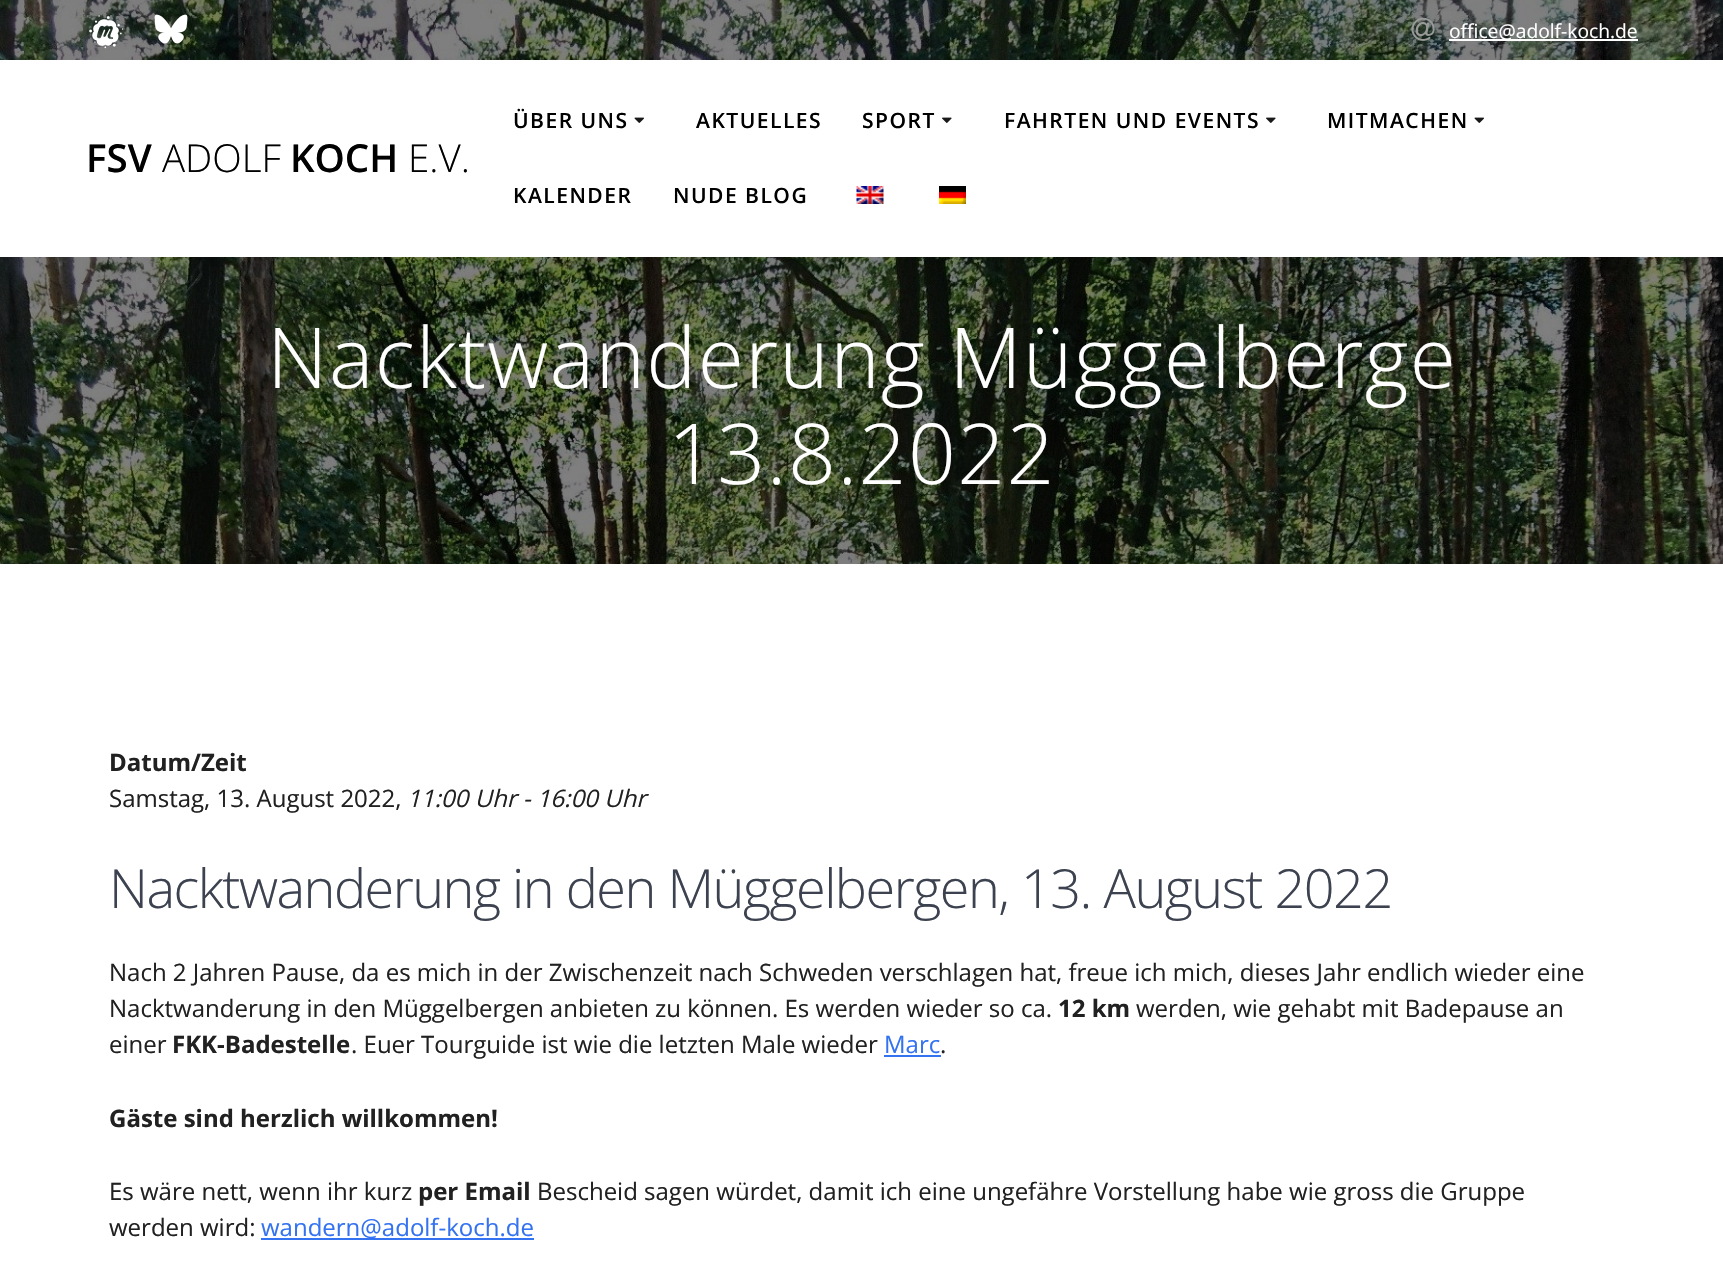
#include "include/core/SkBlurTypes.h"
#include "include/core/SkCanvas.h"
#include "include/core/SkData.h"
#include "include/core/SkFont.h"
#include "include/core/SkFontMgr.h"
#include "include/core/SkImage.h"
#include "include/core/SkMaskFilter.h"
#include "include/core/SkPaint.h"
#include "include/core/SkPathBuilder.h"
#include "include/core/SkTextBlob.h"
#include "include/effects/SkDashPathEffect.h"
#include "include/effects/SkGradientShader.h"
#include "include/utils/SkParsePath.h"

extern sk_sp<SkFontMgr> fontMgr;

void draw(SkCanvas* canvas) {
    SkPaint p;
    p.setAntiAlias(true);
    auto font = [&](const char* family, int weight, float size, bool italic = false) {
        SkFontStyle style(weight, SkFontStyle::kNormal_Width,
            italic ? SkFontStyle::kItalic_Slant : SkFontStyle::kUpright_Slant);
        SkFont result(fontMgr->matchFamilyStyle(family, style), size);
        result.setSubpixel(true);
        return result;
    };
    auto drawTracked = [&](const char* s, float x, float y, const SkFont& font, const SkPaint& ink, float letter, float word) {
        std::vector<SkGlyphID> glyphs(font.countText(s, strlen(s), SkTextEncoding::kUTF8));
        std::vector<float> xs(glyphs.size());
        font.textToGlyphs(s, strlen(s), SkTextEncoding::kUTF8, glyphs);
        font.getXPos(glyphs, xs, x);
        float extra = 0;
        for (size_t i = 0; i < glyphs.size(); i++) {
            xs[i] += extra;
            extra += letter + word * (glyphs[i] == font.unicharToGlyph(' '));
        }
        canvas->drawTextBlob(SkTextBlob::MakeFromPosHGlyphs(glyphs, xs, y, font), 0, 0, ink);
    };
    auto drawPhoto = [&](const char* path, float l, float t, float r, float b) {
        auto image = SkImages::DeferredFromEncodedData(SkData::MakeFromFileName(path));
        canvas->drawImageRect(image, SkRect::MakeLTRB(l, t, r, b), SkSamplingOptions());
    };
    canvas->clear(0xFFFFFFFF);
    drawPhoto("media/8.png", 0, 0, 1723, 564);
    drawPhoto("media/1.png", 89, 15, 124, 49);
    drawPhoto("media/2.png", 154, 14, 188, 44);
    drawPhoto("media/3.png", 1411, 17, 1435, 41);
    p.setColor(0xFFFFFFFF);
    canvas->drawRect(SkRect::MakeLTRB(1449, 39, 1638, 41), p);
    auto font1 = font("Open Sans", 400, 19.25f);
    canvas->drawString("office@adolf-koch.de", 1449, 38, font1, p);
    canvas->drawRect(SkRect::MakeLTRB(0, 60, 1723, 257), p);
    auto font2 = font("Open Sans", 600, 38.5f);
    p.setColor(0xFF000000);
    canvas->drawString("FSV", 86, 172, font2, p);
    auto font3 = font("Open Sans", 300, 38.5f);
    canvas->drawString("ADOLF", 162, 172, font3, p);
    canvas->drawString("KOCH", 290, 172, font2, p);
    canvas->drawString("E.V.", 408, 172, font3, p);
    auto font4 = font("Open Sans", 600, 21);
    drawTracked("ÜBER UNS", 513, 128, font4, p, 1.5f, 0);
    drawPhoto("media/4.png", 634, 117, 644, 123);
    drawTracked("AKTUELLES", 696, 128, font4, p, 1.5f, 0);
    drawTracked("SPORT", 862, 128, font4, p, 1.5f, 0);
    drawPhoto("media/5.png", 942, 117, 952, 123);
    drawTracked("FAHRTEN UND EVENTS", 1004, 128, font4, p, 1.5f, 0);
    drawPhoto("media/5.png", 1266, 117, 1276, 123);
    drawTracked("MITMACHEN", 1327, 128, font4, p, 1.5f, 0);
    drawPhoto("media/4.png", 1474, 117, 1484, 123);
    drawTracked("KALENDER", 513, 203, font4, p, 1.5f, 0);
    drawTracked("NUDE BLOG", 673, 203, font4, p, 1.5f, 0);
    drawPhoto("media/6.png", 856, 186, 884, 204);
    drawPhoto("media/7.png", 939, 186, 966, 204);
    auto font5 = font("Open Sans", 300, 84);
    p.setColor(0xFFFFFFFF);
    drawTracked("Nacktwanderung Müggelberge", 267, 388, font5, p, 1.35f, 0);
    drawTracked("13.8.2022", 668, 484, font5, p, 1.35f, 0);
    auto font6 = font("Open Sans", 700, 24);
    p.setColor(0xFF212121);
    canvas->drawString("Datum/Zeit", 109, 771, font6, p);
    auto font7 = font("Open Sans", 400, 24);
    canvas->drawString("Samstag, 13. August 2022,", 109, 807, font7, p);
    auto font8 = font("Open Sans", 400, 24, true);
    canvas->drawString("11:00 Uhr - 16:00 Uhr", 407, 807, font8, p);
    auto font9 = font("Open Sans", 300, 54);
    p.setColor(0xFF3C424F);
    drawTracked("Nacktwanderung in den Müggelbergen, 13. August 2022", 109, 908, font9, p, -1.5f, 0);
    p.setColor(0xFF212121);
    canvas->drawString("Nach 2 Jahren Pause, da es mich in der Zwischenzeit nach Schweden verschlagen hat, freue ich mich, dieses Jahr endlich wieder eine", 109, 981, font7, p);
    canvas->drawString("Nacktwanderung in den Müggelbergen anbieten zu können. Es werden wieder so ca.", 109, 1017, font7, p);
    canvas->drawString("12 km", 1058, 1017, font6, p);
    canvas->drawString("werden, wie gehabt mit Badepause an", 1136, 1017, font7, p);
    canvas->drawString("einer", 109, 1053, font7, p);
    canvas->drawString("FKK-Badestelle", 172, 1053, font6, p);
    canvas->drawString(". Euer Tourguide ist wie die letzten Male wieder", 351, 1053, font7, p);
    p.setColor(0xFF3372F0);
    canvas->drawString("Marc", 884, 1053, font7, p);
    canvas->drawRect(SkRect::MakeLTRB(884, 1055, 941, 1057), p);
    p.setColor(0xFF212121);
    canvas->drawString(".", 940, 1053, font7, p);
    canvas->drawString("Gäste sind herzlich willkommen!", 109, 1127, font6, p);
    canvas->drawString("Es wäre nett, wenn ihr kurz", 109, 1200, font7, p);
    canvas->drawString("per Email", 418, 1200, font6, p);
    canvas->drawString("Bescheid sagen würdet, damit ich eine ungefähre Vorstellung habe wie gross die Gruppe", 537, 1200, font7, p);
    canvas->drawString("werden wird:", 109, 1236, font7, p);
    p.setColor(0xFF3372F0);
    canvas->drawRect(SkRect::MakeLTRB(261, 1238, 534, 1240), p);
    canvas->drawString("wandern@adolf-koch.de", 261, 1236, font7, p);
}
